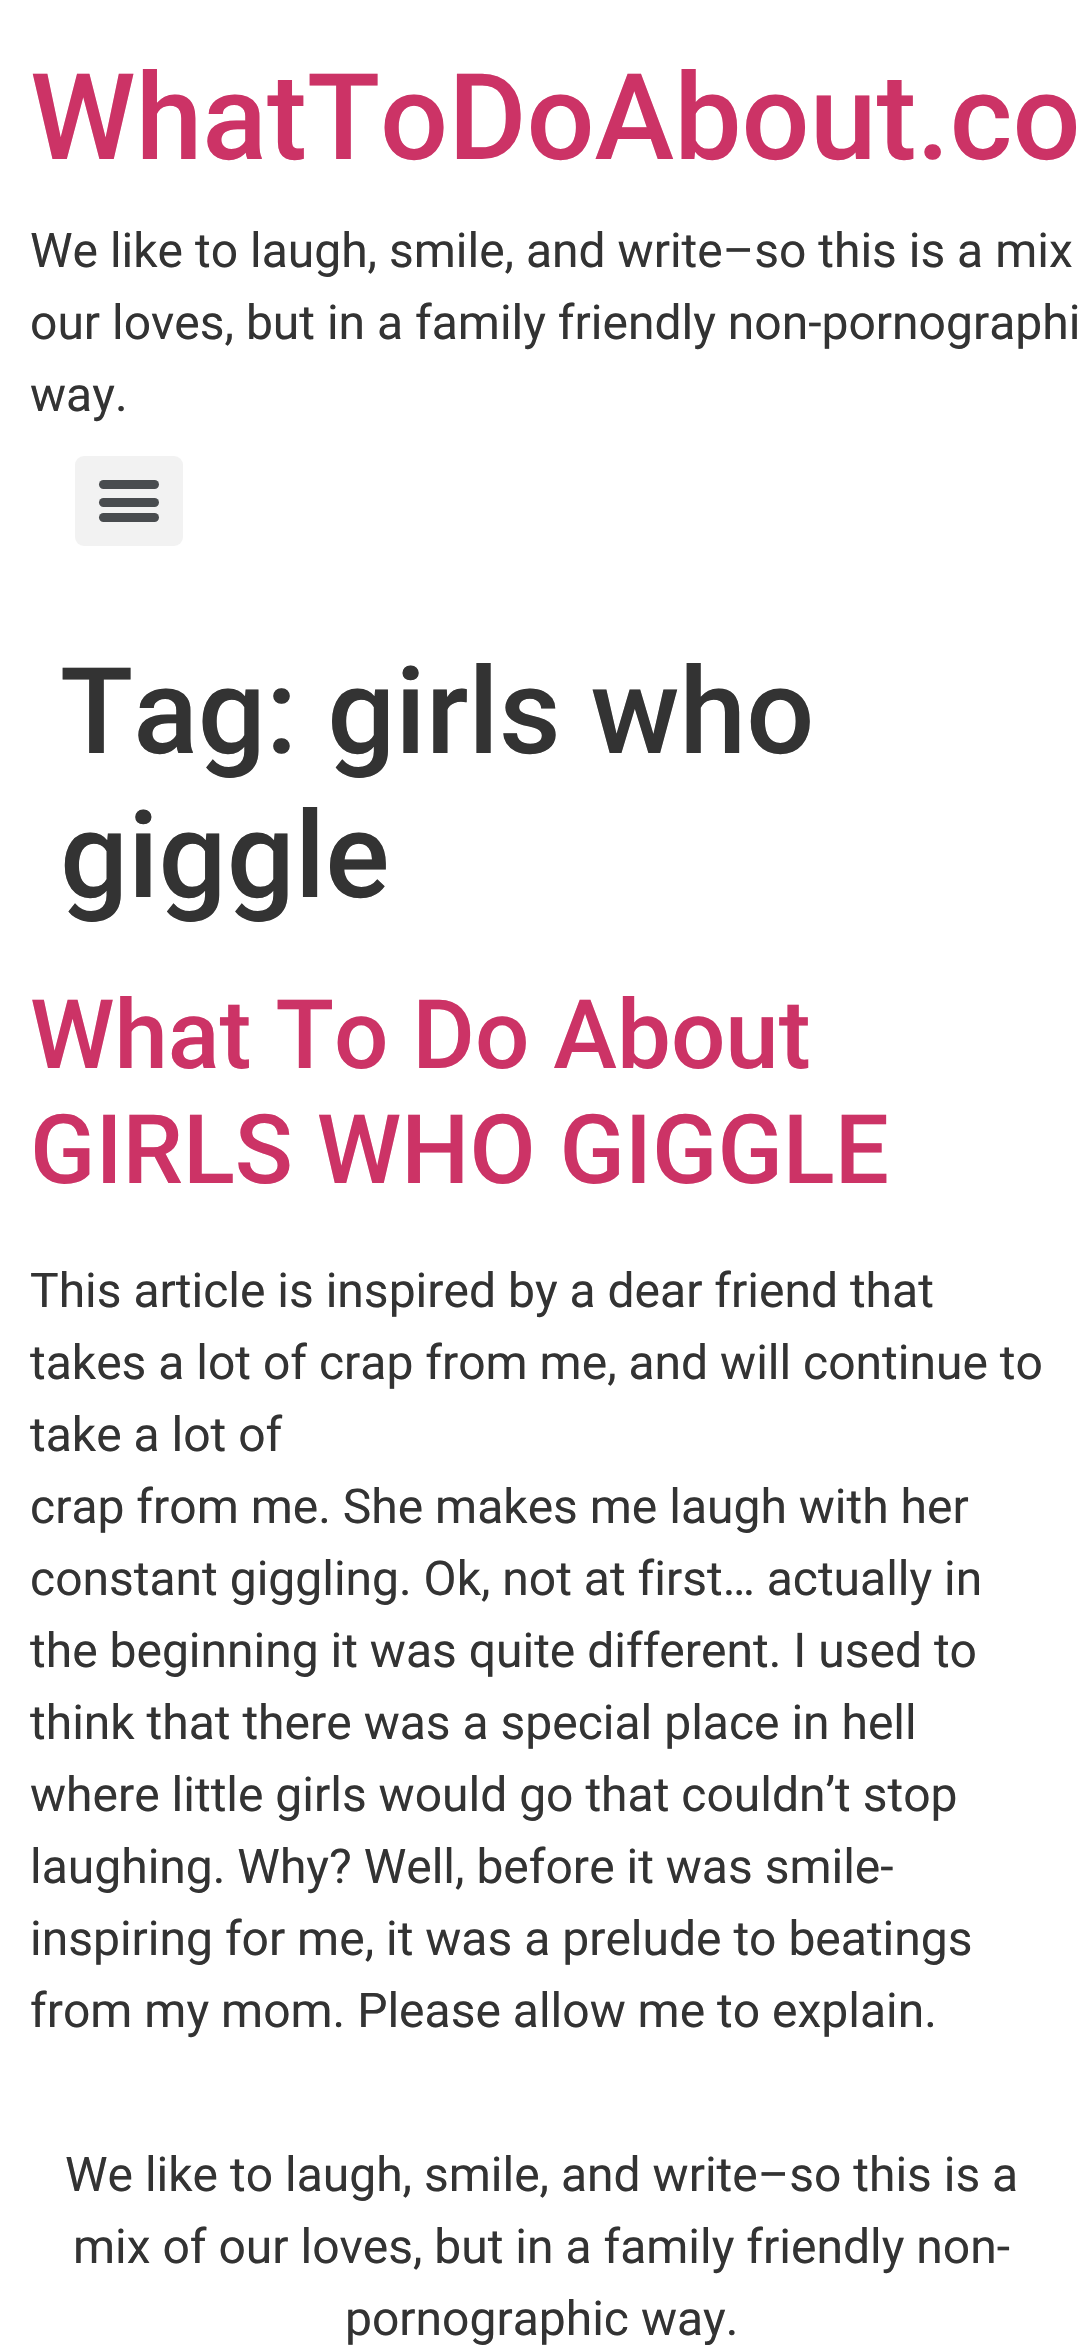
#include "include/core/SkBlurTypes.h"
#include "include/core/SkCanvas.h"
#include "include/core/SkData.h"
#include "include/core/SkFont.h"
#include "include/core/SkFontMgr.h"
#include "include/core/SkImage.h"
#include "include/core/SkMaskFilter.h"
#include "include/core/SkPaint.h"
#include "include/core/SkPathBuilder.h"
#include "include/core/SkTextBlob.h"
#include "include/effects/SkDashPathEffect.h"
#include "include/effects/SkGradientShader.h"
#include "include/utils/SkParsePath.h"

extern sk_sp<SkFontMgr> fontMgr;

void draw(SkCanvas* canvas) {
    SkPaint p;
    p.setAntiAlias(true);
    auto font = [&](const char* family, int weight, float size, bool italic = false) {
        SkFontStyle style(weight, SkFontStyle::kNormal_Width,
            italic ? SkFontStyle::kItalic_Slant : SkFontStyle::kUpright_Slant);
        SkFont result(fontMgr->matchFamilyStyle(family, style), size);
        result.setSubpixel(true);
        return result;
    };
    canvas->clear(0xFFFFFFFF);
    auto font1 = font("Roboto", 500, 120);
    p.setColor(0xFFCC3366);
    canvas->drawString("WhatToDoAbout.co", 30, 159, font1, p);
    auto font2 = font("Roboto", 400, 48);
    p.setColor(0xFF333333);
    {
        const struct { const char* s; float x, y; } items[] = {
            {"We like to laugh, smile, and write–so this is a mix", 30, 267},
            {"our loves, but in a family friendly non-pornographi", 30, 339},
            {"way.", 30, 411},
        };
        for (auto [s, x, y] : items) {
            canvas->drawString(s, x, y, font2, p);
        }
    }
    p.setColor(0xFFF2F2F2);
    canvas->drawRoundRect(SkRect::MakeLTRB(75, 456, 183, 546), 9, 9, p);
    p.setColor(0xFF494C4F);
    canvas->drawRoundRect(SkRect::MakeLTRB(99, 498, 159, 507), 4.5f, 4.5f, p);
    canvas->drawRoundRect(SkRect::MakeLTRB(99, 480, 159, 489), 4.5f, 4.5f, p);
    canvas->drawRoundRect(SkRect::MakeLTRB(99, 513, 159, 522), 4.5f, 4.5f, p);
    p.setColor(0xFF333333);
    canvas->drawString("Tag: girls who", 60, 753, font1, p);
    canvas->drawString("giggle", 60, 897, font1, p);
    auto font3 = font("Roboto", 500, 96);
    p.setColor(0xFFCC3366);
    canvas->drawString("What To Do About", 30, 1068, font3, p);
    canvas->drawString("GIRLS WHO GIGGLE", 30, 1183, font3, p);
    p.setColor(0xFF333333);
    {
        const struct { const char* s; float x, y; } items[] = {
            {"This article is inspired by a dear friend that", 30, 1307},
            {"takes a lot of crap from me, and will continue to", 30, 1379},
            {"take a lot of", 30, 1451},
            {"crap from me. She makes me laugh with her", 30, 1523},
            {"constant giggling. Ok, not at first… actually in", 30, 1595},
            {"the beginning it was quite different. I used to", 30, 1667},
            {"think that there was a special place in hell", 30, 1739},
            {"where little girls would go that couldn’t stop", 30, 1811},
            {"laughing. Why? Well, before it was smile-", 30, 1883},
            {"inspiring for me, it was a prelude to beatings", 30, 1955},
            {"from my mom. Please allow me to explain.", 30, 2027},
            {"We like to laugh, smile, and write–so this is a", 65, 2191},
            {"mix of our loves, but in a family friendly non-", 73, 2263},
            {"pornographic way.", 345, 2335},
        };
        for (auto [s, x, y] : items) {
            canvas->drawString(s, x, y, font2, p);
        }
    }
}
